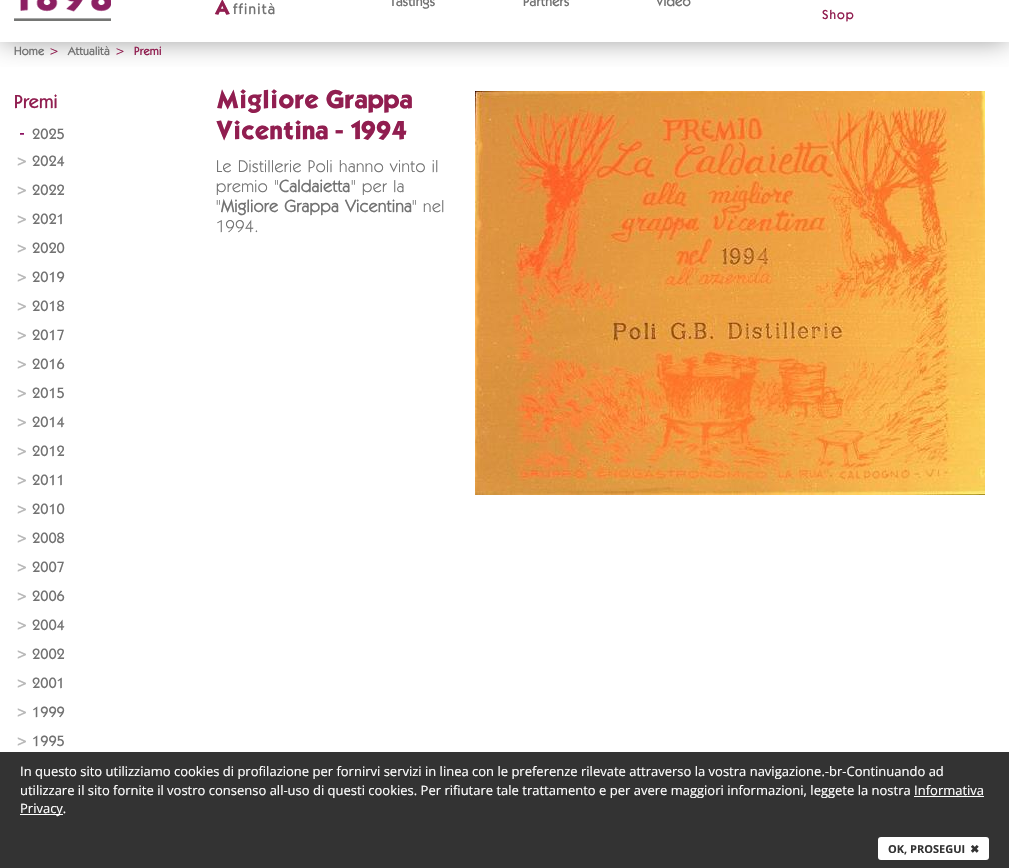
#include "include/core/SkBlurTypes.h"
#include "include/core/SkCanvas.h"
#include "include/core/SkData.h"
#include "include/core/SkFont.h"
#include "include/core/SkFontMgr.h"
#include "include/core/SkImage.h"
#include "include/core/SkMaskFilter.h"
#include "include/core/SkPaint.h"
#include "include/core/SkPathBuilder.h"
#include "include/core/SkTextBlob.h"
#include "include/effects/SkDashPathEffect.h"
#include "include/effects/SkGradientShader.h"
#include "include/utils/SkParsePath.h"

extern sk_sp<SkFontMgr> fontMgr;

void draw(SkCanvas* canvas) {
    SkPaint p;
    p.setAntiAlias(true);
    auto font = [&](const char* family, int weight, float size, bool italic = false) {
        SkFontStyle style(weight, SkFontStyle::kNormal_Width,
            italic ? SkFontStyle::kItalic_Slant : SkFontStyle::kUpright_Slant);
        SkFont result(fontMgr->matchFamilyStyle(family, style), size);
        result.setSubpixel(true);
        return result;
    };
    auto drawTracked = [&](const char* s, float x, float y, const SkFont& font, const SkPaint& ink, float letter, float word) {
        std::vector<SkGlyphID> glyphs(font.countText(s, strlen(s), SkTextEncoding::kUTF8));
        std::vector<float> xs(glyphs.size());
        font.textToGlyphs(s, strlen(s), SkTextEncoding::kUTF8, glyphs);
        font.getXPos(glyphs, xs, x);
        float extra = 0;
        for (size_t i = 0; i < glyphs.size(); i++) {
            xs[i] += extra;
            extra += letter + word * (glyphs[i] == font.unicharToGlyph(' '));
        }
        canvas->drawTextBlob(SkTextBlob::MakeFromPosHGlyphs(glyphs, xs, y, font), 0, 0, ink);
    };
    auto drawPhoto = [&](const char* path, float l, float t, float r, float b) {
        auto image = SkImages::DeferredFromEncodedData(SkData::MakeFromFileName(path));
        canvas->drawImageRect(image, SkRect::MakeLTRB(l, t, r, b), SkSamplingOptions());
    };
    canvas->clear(0xFFFFFFFF);
    canvas->save();
    canvas->clipRect(SkRect::MakeLTRB(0, 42, 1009, 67));
    p.setColor(0xFF999999);
    p.setMaskFilter(SkMaskFilter::MakeBlur(kNormal_SkBlurStyle, 12.5f));
    canvas->drawRect(SkRect::MakeLTRB(1, -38, 1008, 41), p);
    p.setMaskFilter(nullptr);
    canvas->restore();
    drawPhoto("media/1.png", 14, 0, 111, 21);
    auto font1 = font("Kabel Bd", 400, 17);
    p.setColor(0xFF911E50);
    drawTracked("A", 214, 14, font1, p, 1.25f, 0);
    auto font2 = font("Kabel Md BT", 500, 15);
    p.setColor(0xFF727272);
    drawTracked("ffinità", 233, 14, font2, p, 1.25f, 0);
    auto font3 = font("Kabel Md BT", 500, 14);
    {
        const struct { const char* s; float x, y; } items[] = {
            {"Tastings", 390, 6},
            {"Partners", 523, 6},
            {"Video", 656, 6},
        };
        for (auto [s, x, y] : items) {
            canvas->drawString(s, x, y, font3, p);
        }
    }
    auto font4 = font("Kabel Md BT", 500, 13);
    p.setColor(0xFF911E50);
    drawTracked("Shop", 822, 19, font4, p, 1, 0);
    auto font5 = font("Kabel Md BT", 500, 12);
    p.setColor(0xFF727272);
    canvas->drawString("Home", 14, 55, font5, p);
    p.setColor(0xFF911E50);
    canvas->drawString(">", 49, 55, font5, p);
    p.setColor(0xFF727272);
    canvas->drawString("Attualità", 68, 55, font5, p);
    p.setColor(0xFF911E50);
    canvas->drawString(">", 115, 55, font5, p);
    canvas->drawString("Premi", 134, 55, font5, p);
    auto font6 = font("Kabel Md BT", 500, 19);
    canvas->drawString("Premi", 14, 108, font6, p);
    drawPhoto("media/2.png", 20, 133, 24, 135);
    p.setColor(0xFF727272);
    canvas->drawString("2025", 32, 139, font2, p);
    drawPhoto("media/3.png", 17, 157, 26, 166);
    canvas->drawString("2024", 32, 166, font2, p);
    drawPhoto("media/3.png", 17, 186, 26, 195);
    canvas->drawString("2022", 32, 195, font2, p);
    drawPhoto("media/3.png", 17, 215, 26, 224);
    canvas->drawString("2021", 32, 224, font2, p);
    drawPhoto("media/3.png", 17, 244, 26, 253);
    canvas->drawString("2020", 32, 253, font2, p);
    drawPhoto("media/3.png", 17, 273, 26, 282);
    canvas->drawString("2019", 32, 282, font2, p);
    drawPhoto("media/3.png", 17, 302, 26, 311);
    canvas->drawString("2018", 32, 311, font2, p);
    drawPhoto("media/3.png", 17, 331, 26, 340);
    canvas->drawString("2017", 32, 340, font2, p);
    drawPhoto("media/3.png", 17, 360, 26, 369);
    canvas->drawString("2016", 32, 369, font2, p);
    drawPhoto("media/3.png", 17, 389, 26, 398);
    canvas->drawString("2015", 32, 398, font2, p);
    drawPhoto("media/3.png", 17, 418, 26, 427);
    canvas->drawString("2014", 32, 427, font2, p);
    drawPhoto("media/3.png", 17, 447, 26, 456);
    canvas->drawString("2012", 32, 456, font2, p);
    drawPhoto("media/3.png", 17, 476, 26, 485);
    canvas->drawString("2011", 32, 485, font2, p);
    drawPhoto("media/3.png", 17, 505, 26, 514);
    canvas->drawString("2010", 32, 514, font2, p);
    drawPhoto("media/3.png", 17, 534, 26, 543);
    canvas->drawString("2008", 32, 543, font2, p);
    drawPhoto("media/3.png", 17, 563, 26, 572);
    canvas->drawString("2007", 32, 572, font2, p);
    drawPhoto("media/3.png", 17, 592, 26, 601);
    canvas->drawString("2006", 32, 601, font2, p);
    drawPhoto("media/3.png", 17, 621, 26, 630);
    canvas->drawString("2004", 32, 630, font2, p);
    drawPhoto("media/3.png", 17, 650, 26, 659);
    canvas->drawString("2002", 32, 659, font2, p);
    drawPhoto("media/3.png", 17, 679, 26, 688);
    canvas->drawString("2001", 32, 688, font2, p);
    drawPhoto("media/3.png", 17, 708, 26, 717);
    canvas->drawString("1999", 32, 717, font2, p);
    drawPhoto("media/3.png", 17, 737, 26, 746);
    canvas->drawString("1995", 32, 746, font2, p);
    auto font7 = font("Kabel Bd", 400, 22);
    p.setColor(0xFF911E50);
    drawTracked("Migliore Grappa", 216, 108, font7, p, -0.7f, 0);
    drawTracked("Vicentina - 1994", 216, 139, font7, p, -0.7f, 0);
    auto font8 = font("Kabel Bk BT", 400, 17);
    p.setColor(0xFF727272);
    drawTracked("Le Distillerie Poli hanno vinto il", 216, 172, font8, p, 0.5f, 1);
    drawTracked("premio \"", 216, 192, font8, p, 0.5f, 1);
    auto font9 = font("Kabel Bk BT", 700, 17);
    drawTracked("Caldaietta", 279, 192, font9, p, 0.5f, 0);
    drawTracked("\" per la", 351, 192, font8, p, 0.5f, 1);
    drawTracked("\"", 216, 212, font8, p, 0.5f, 0);
    drawTracked("Migliore Grappa Vicentina", 221, 212, font9, p, 0.5f, 1);
    drawTracked("\" nel", 412, 212, font8, p, 0.5f, 1);
    drawTracked("1994.", 216, 232, font8, p, 0.5f, 0);
    drawPhoto("media/4.png", 475, 91, 985, 495);
    p.setColor(0xFF333333);
    canvas->drawRect(SkRect::MakeLTRB(0, 752, 1009, 868), p);
    auto font10 = font("Open Sans", 400, 13);
    p.setColor(0xFFFFFFFF);
    canvas->drawString("In questo sito utilizziamo cookies di profilazione per fornirvi servizi in linea con le preferenze rilevate attraverso la vostra navigazione.-br-Continuando ad", 20, 776, font10, p);
    canvas->drawString("utilizzare il sito fornite il vostro consenso all-uso di questi cookies. Per rifiutare tale trattamento e per avere maggiori informazioni, leggete la nostra Informativa", 20, 795, font10, p);
    canvas->drawRect(SkRect::MakeLTRB(20, 814, 63, 815), p);
    canvas->drawString("Privacy.", 20, 813, font10, p);
    canvas->drawRect(SkRect::MakeLTRB(914, 796, 984, 797), p);
    canvas->drawRoundRect(SkRect::MakeLTRB(878, 837, 989, 860), 3, 3, p);
    auto font11 = font("Open Sans", 700, 11);
    p.setColor(0xFF333333);
    canvas->drawString("OK, PROSEGUI", 888, 853, font11, p);
    auto font12 = font("DejaVu Sans", 700, 11);
    canvas->drawString("✖", 970, 853, font12, p);
}
